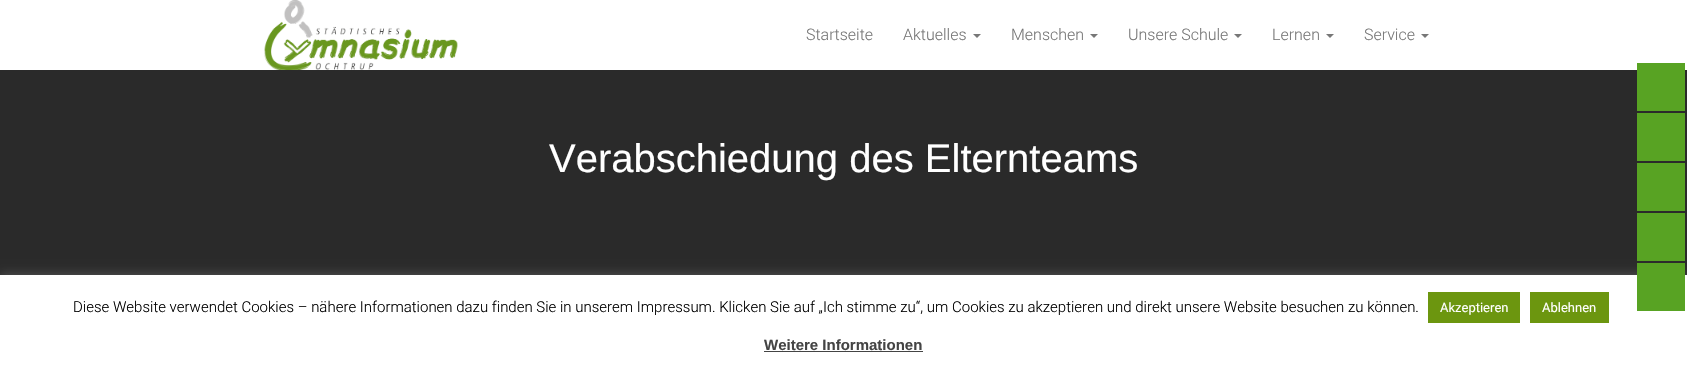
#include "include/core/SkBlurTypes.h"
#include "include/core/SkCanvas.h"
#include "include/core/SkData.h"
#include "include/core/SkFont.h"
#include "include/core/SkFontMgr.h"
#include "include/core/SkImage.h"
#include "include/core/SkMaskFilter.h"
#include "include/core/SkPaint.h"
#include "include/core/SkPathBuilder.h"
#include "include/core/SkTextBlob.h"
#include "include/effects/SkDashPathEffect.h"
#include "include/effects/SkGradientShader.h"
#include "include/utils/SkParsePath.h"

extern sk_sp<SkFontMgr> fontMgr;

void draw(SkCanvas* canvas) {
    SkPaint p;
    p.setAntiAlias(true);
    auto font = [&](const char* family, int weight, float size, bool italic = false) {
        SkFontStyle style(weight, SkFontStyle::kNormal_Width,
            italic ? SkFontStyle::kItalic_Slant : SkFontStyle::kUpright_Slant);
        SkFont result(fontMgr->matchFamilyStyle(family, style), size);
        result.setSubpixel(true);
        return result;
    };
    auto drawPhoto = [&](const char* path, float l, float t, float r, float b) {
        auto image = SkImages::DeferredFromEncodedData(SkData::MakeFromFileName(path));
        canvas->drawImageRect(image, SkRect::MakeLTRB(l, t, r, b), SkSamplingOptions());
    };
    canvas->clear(0xFFFFFFFF);
    drawPhoto("media/1.png", 264, 0, 458, 70);
    auto font1 = font("Roboto", 300, 16);
    p.setColor(0xFF777777);
    canvas->drawString("Startseite", 806, 40, font1, p);
    canvas->drawString("Aktuelles", 903, 40, font1, p);
    canvas->drawPath(SkPathBuilder().moveTo(973, 34).lineTo(981, 34).lineTo(977, 38).close().detach(), p);
    canvas->drawString("Menschen", 1011, 40, font1, p);
    canvas->drawPath(SkPathBuilder().moveTo(1090, 34).lineTo(1098, 34).lineTo(1094, 38).close().detach(), p);
    canvas->drawString("Unsere Schule", 1128, 40, font1, p);
    canvas->drawPath(SkPathBuilder().moveTo(1234, 34).lineTo(1242, 34).lineTo(1238, 38).close().detach(), p);
    canvas->drawString("Lernen", 1272, 40, font1, p);
    canvas->drawPath(SkPathBuilder().moveTo(1326, 34).lineTo(1334, 34).lineTo(1330, 38).close().detach(), p);
    canvas->drawString("Service", 1364, 40, font1, p);
    canvas->drawPath(SkPathBuilder().moveTo(1421, 34).lineTo(1429, 34).lineTo(1425, 38).close().detach(), p);
    p.setColor(0xFF2A2A2A);
    canvas->drawRect(SkRect::MakeLTRB(0, 70, 1687, 275), p);
    auto font2 = font("Liberation Sans", 400, 40);
    p.setColor(0xFFFFFFFF);
    canvas->drawString("Verabschiedung des Elternteams", 549, 172, font2, p);
    {
        const struct { float l, t, r, b; SkColor color; } items[] = {
            {1637, 63, 1685, 111, 0xFF58A323},
            {1637, 113, 1685, 161, 0xFF58A323},
            {1637, 163, 1685, 211, 0xFF58A323},
        };
        for (auto [l, t, r, b, color] : items) {
            p.setColor(color);
            canvas->drawRect(SkRect::MakeLTRB(l, t, r, b), p);
        }
    }
    p.setColor(0x4DACABAB);
    p.setMaskFilter(SkMaskFilter::MakeBlur(kNormal_SkBlurStyle, 5));
    canvas->drawRect(SkRect::MakeLTRB(0, 274, 1687, 373), p);
    p.setMaskFilter(nullptr);
    {
        const struct { float l, t, r, b; SkColor color; } items[] = {
            {1637, 213, 1685, 261, 0xFF58A323},
            {0, 275, 1687, 374, 0xFFFFFFFF},
            {1637, 263, 1685, 311, 0xFF58A323},
        };
        for (auto [l, t, r, b, color] : items) {
            p.setColor(color);
            canvas->drawRect(SkRect::MakeLTRB(l, t, r, b), p);
        }
    }
    auto font3 = font("Roboto", 300, 15);
    p.setColor(0xFF000000);
    canvas->drawString("Diese Website verwendet Cookies – nähere Informationen dazu finden Sie in unserem Impressum. Klicken Sie auf „Ich stimme zu“, um Cookies zu akzeptieren und direkt unsere Website besuchen zu können.", 73, 312, font3, p);
    p.setColor(0xFF6C960F);
    canvas->drawRect(SkRect::MakeLTRB(1428, 292, 1520, 323), p);
    auto font4 = font("Roboto", 400, 13);
    p.setColor(0xFFFFFFFF);
    canvas->drawString("Akzeptieren", 1440, 312, font4, p);
    p.setColor(0xFF6C960F);
    canvas->drawRect(SkRect::MakeLTRB(1530, 292, 1609, 323), p);
    p.setColor(0xFFFFFFFF);
    canvas->drawString("Ablehnen", 1542, 312, font4, p);
    auto font5 = font("Liberation Sans", 700, 15);
    p.setColor(0xFF444444);
    canvas->drawString("Weitere Informationen", 764, 350, font5, p);
    canvas->drawRect(SkRect::MakeLTRB(764, 351, 923, 352), p);
}
